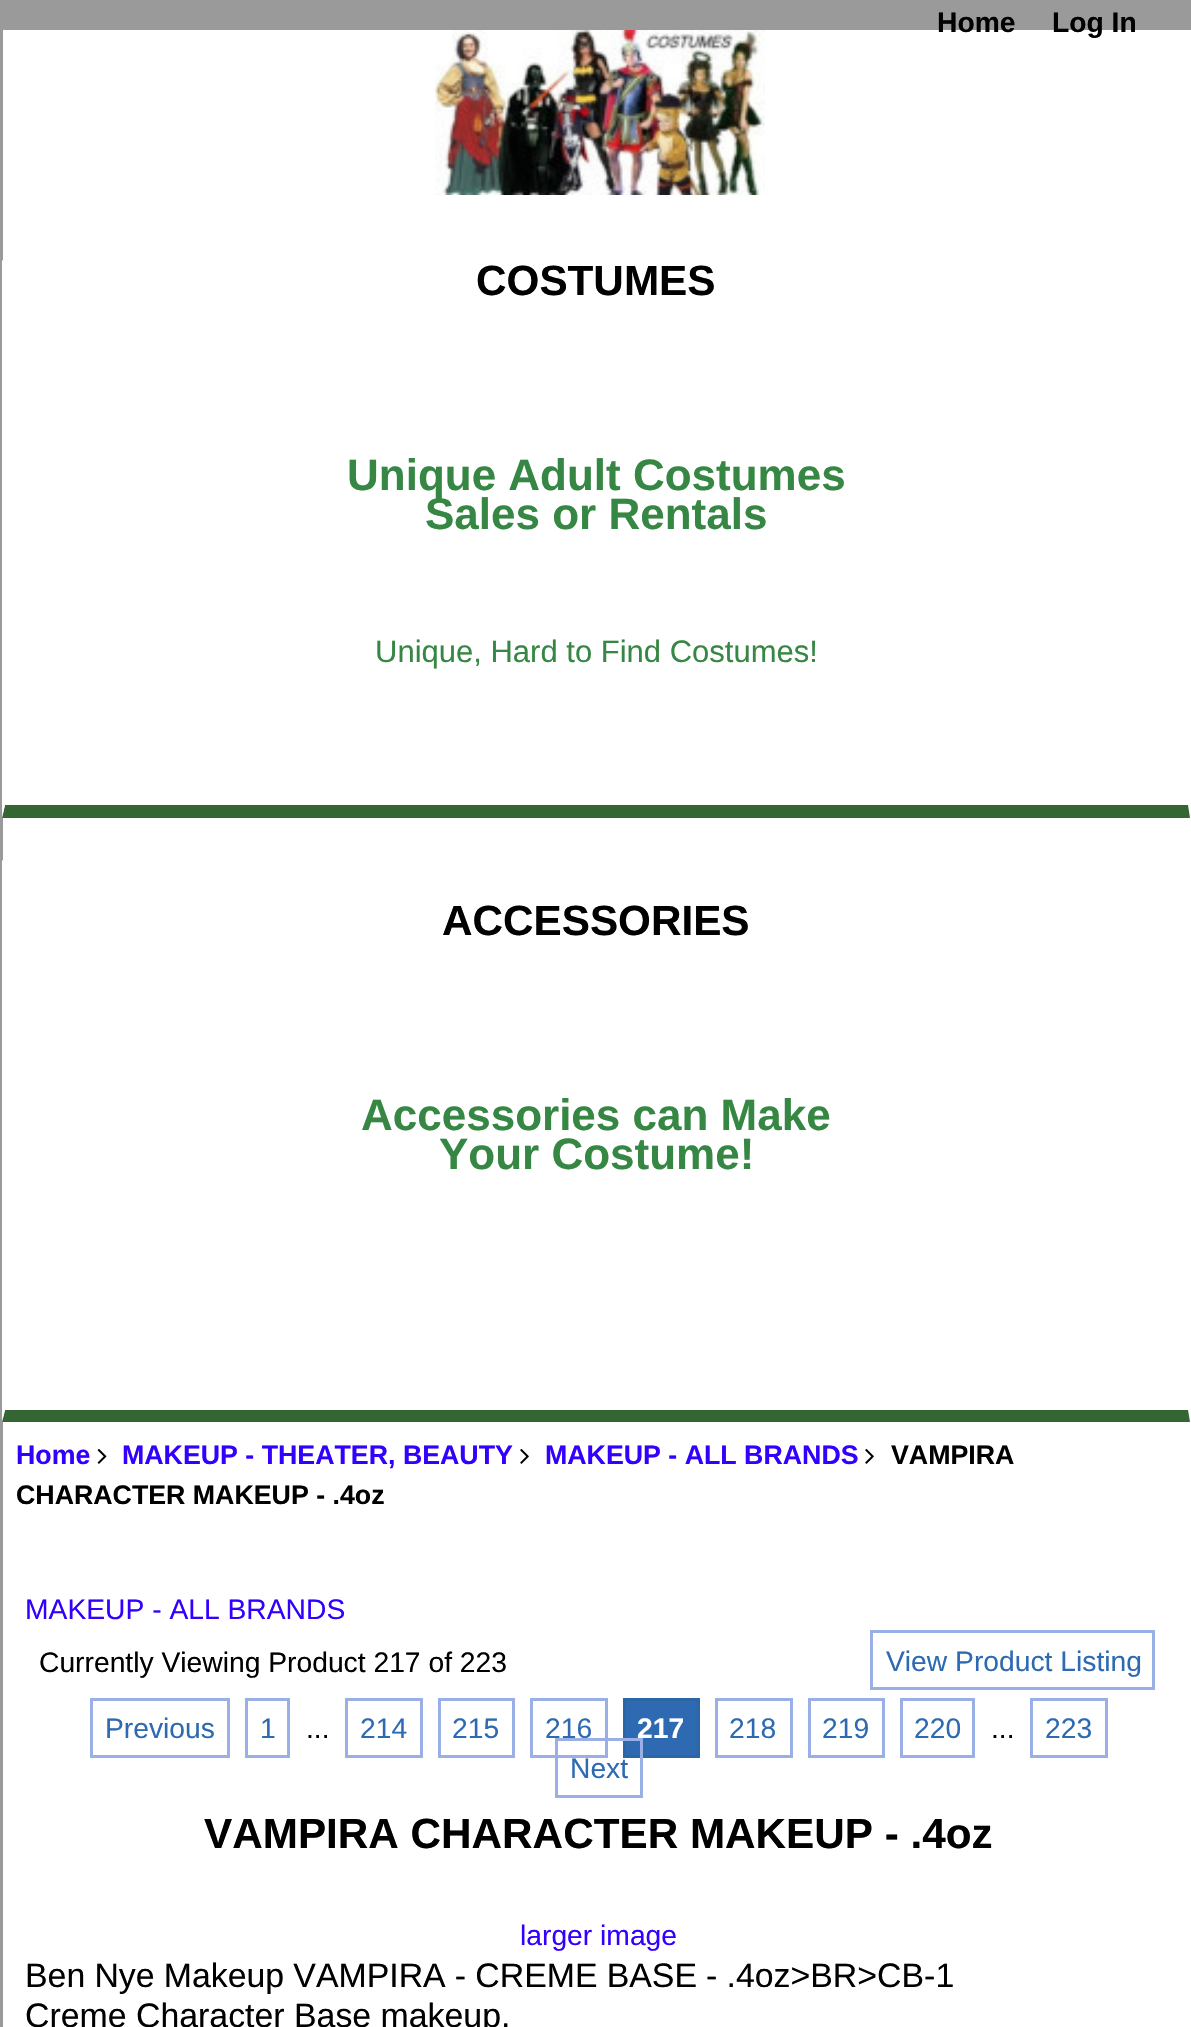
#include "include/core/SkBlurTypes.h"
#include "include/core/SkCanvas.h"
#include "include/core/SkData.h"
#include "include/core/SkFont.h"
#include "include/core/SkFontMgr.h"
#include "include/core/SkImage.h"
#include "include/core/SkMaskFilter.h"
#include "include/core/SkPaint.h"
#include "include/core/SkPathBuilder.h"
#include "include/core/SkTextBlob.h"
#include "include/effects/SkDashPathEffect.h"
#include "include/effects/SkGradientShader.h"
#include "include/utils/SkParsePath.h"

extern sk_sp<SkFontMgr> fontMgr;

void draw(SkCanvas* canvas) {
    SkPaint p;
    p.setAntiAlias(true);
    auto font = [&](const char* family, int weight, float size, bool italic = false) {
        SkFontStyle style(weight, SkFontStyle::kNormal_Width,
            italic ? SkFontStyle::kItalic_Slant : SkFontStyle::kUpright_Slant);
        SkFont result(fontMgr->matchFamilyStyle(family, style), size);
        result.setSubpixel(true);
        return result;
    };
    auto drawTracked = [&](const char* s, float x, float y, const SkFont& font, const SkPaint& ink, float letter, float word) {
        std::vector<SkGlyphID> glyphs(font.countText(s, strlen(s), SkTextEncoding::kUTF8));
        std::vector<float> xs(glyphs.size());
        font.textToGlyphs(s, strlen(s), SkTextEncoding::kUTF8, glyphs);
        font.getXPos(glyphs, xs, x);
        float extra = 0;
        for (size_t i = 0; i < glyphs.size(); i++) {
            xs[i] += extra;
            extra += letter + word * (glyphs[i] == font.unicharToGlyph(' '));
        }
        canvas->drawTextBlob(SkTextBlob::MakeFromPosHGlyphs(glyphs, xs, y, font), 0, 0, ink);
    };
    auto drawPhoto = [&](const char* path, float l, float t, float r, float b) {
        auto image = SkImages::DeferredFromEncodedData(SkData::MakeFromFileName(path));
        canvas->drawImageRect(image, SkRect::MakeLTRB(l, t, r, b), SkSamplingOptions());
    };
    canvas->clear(0xFFFFFFFF);
    p.setStyle(SkPaint::kStroke_Style);
    p.setStrokeWidth(3);
    p.setColor(0xFF9A9A9A);
    canvas->drawRect(SkRect::MakeLTRB(1.5f, 1.5f, 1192.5f, 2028.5f), p);
    p.setStyle(SkPaint::kFill_Style);
    canvas->drawRect(SkRect::MakeLTRB(3, 3, 1191, 30), p);
    auto font1 = font("Liberation Sans", 700, 28.25f);
    p.setColor(0xFF000000);
    canvas->drawString("Home", 937, 32, font1, p);
    canvas->drawString("Log In", 1052, 32, font1, p);
    drawPhoto("media/1.png", 435, 30, 765, 195);
    p.setColor(0xFF336633);
    canvas->drawPath(SkPathBuilder().moveTo(1190, 818).lineTo(2, 818).lineTo(5, 805).lineTo(1188, 805).close().detach(), p);
    p.setColor(0xFFFFFFFF);
    canvas->drawPath(SkPathBuilder().moveTo(2, 818).lineTo(2, 260).lineTo(5, 262).lineTo(5, 805).close().detach(), p);
    auto font2 = font("Liberation Sans", 700, 42.25f);
    p.setColor(0xFF000000);
    canvas->drawString("COSTUMES", 476, 295, font2, p);
    auto font3 = font("Liberation Sans", 700, 44);
    p.setColor(0xFF368744);
    canvas->drawString("Unique Adult Costumes", 347, 490, font3, p);
    canvas->drawString("Sales or Rentals", 425, 529, font3, p);
    auto font4 = font("Liberation Sans", 400, 31);
    canvas->drawString("Unique, Hard to Find Costumes!", 375, 662, font4, p);
    p.setColor(0xFF336633);
    canvas->drawPath(SkPathBuilder().moveTo(1190, 1422).lineTo(2, 1422).lineTo(5, 1410).lineTo(1188, 1410).close().detach(), p);
    p.setColor(0xFFFFFFFF);
    canvas->drawPath(SkPathBuilder().moveTo(2, 1422).lineTo(2, 860).lineTo(5, 862).lineTo(5, 1410).close().detach(), p);
    p.setColor(0xFF000000);
    canvas->drawString("ACCESSORIES", 442, 935, font2, p);
    p.setColor(0xFF368744);
    canvas->drawString("Accessories can Make", 361, 1130, font3, p);
    canvas->drawString("Your Costume!", 439, 1169, font3, p);
    auto font5 = font("Liberation Sans", 700, 26.75f);
    p.setColor(0xFF3300FF);
    canvas->drawString("Home", 16, 1464, font5, p);
    drawPhoto("media/2.png", 97, 1449, 107, 1464);
    canvas->drawString("MAKEUP - THEATER, BEAUTY", 122, 1464, font5, p);
    drawPhoto("media/3.png", 520, 1449, 529, 1464);
    canvas->drawString("MAKEUP - ALL BRANDS", 545, 1464, font5, p);
    drawPhoto("media/3.png", 865, 1449, 874, 1464);
    p.setColor(0xFF000000);
    canvas->drawString("VAMPIRA", 891, 1464, font5, p);
    canvas->drawString("CHARACTER MAKEUP - .4oz", 16, 1504, font5, p);
    auto font6 = font("Liberation Sans", 400, 28.25f);
    p.setColor(0xFF3300FF);
    canvas->drawString("MAKEUP - ALL BRANDS", 25, 1619, font6, p);
    p.setColor(0xFF000000);
    canvas->drawString("Currently Viewing Product 217 of 223", 39, 1672, font6, p);
    p.setStyle(SkPaint::kStroke_Style);
    p.setColor(0xFF9AAFE5);
    canvas->drawRect(SkRect::MakeLTRB(871.5f, 1631.5f, 1153.5f, 1688.5f), p);
    p.setStyle(SkPaint::kFill_Style);
    p.setColor(0xFF2E6AB1);
    canvas->drawString("View Product Listing", 886, 1671, font6, p);
    p.setStyle(SkPaint::kStroke_Style);
    p.setColor(0xFF9AAFE5);
    canvas->drawRect(SkRect::MakeLTRB(91.5f, 1699.5f, 228.5f, 1756.5f), p);
    p.setStyle(SkPaint::kFill_Style);
    p.setColor(0xFF2E6AB1);
    canvas->drawString("Previous", 105, 1738, font6, p);
    p.setStyle(SkPaint::kStroke_Style);
    p.setColor(0xFF9AAFE5);
    canvas->drawRect(SkRect::MakeLTRB(246.5f, 1699.5f, 288.5f, 1756.5f), p);
    p.setStyle(SkPaint::kFill_Style);
    p.setColor(0xFF2E6AB1);
    canvas->drawString("1", 260, 1738, font6, p);
    p.setColor(0xFF000000);
    canvas->drawString("...", 306, 1738, font6, p);
    p.setStyle(SkPaint::kStroke_Style);
    p.setColor(0xFF9AAFE5);
    canvas->drawRect(SkRect::MakeLTRB(346.5f, 1699.5f, 421.5f, 1756.5f), p);
    p.setStyle(SkPaint::kFill_Style);
    p.setColor(0xFF2E6AB1);
    canvas->drawString("214", 360, 1738, font6, p);
    p.setStyle(SkPaint::kStroke_Style);
    p.setColor(0xFF9AAFE5);
    canvas->drawRect(SkRect::MakeLTRB(439.5f, 1699.5f, 513.5f, 1756.5f), p);
    p.setStyle(SkPaint::kFill_Style);
    p.setColor(0xFF2E6AB1);
    canvas->drawString("215", 452, 1738, font6, p);
    p.setStyle(SkPaint::kStroke_Style);
    p.setColor(0xFF9AAFE5);
    canvas->drawRect(SkRect::MakeLTRB(531.5f, 1699.5f, 606.5f, 1756.5f), p);
    p.setStyle(SkPaint::kFill_Style);
    p.setColor(0xFF2E6AB1);
    canvas->drawString("216", 545, 1738, font6, p);
    canvas->drawRect(SkRect::MakeLTRB(624.5f, 1699.5f, 698.5f, 1756.5f), p);
    p.setStyle(SkPaint::kStroke_Style);
    p.setColor(0xFF2B66A5);
    canvas->drawRect(SkRect::MakeLTRB(624.5f, 1699.5f, 698.5f, 1756.5f), p);
    p.setStyle(SkPaint::kFill_Style);
    p.setColor(0xFFFFFFFF);
    canvas->drawString("217", 637, 1738, font1, p);
    p.setStyle(SkPaint::kStroke_Style);
    p.setColor(0xFF9AAFE5);
    canvas->drawRect(SkRect::MakeLTRB(716.5f, 1699.5f, 791.5f, 1756.5f), p);
    p.setStyle(SkPaint::kFill_Style);
    p.setColor(0xFF2E6AB1);
    canvas->drawString("218", 729, 1738, font6, p);
    p.setStyle(SkPaint::kStroke_Style);
    p.setColor(0xFF9AAFE5);
    canvas->drawRect(SkRect::MakeLTRB(809.5f, 1699.5f, 883.5f, 1756.5f), p);
    p.setStyle(SkPaint::kFill_Style);
    p.setColor(0xFF2E6AB1);
    canvas->drawString("219", 822, 1738, font6, p);
    p.setStyle(SkPaint::kStroke_Style);
    p.setColor(0xFF9AAFE5);
    canvas->drawRect(SkRect::MakeLTRB(901.5f, 1699.5f, 973.5f, 1756.5f), p);
    p.setStyle(SkPaint::kFill_Style);
    p.setColor(0xFF2E6AB1);
    canvas->drawString("220", 914, 1738, font6, p);
    p.setColor(0xFF000000);
    canvas->drawString("...", 991, 1738, font6, p);
    p.setStyle(SkPaint::kStroke_Style);
    p.setColor(0xFF9AAFE5);
    canvas->drawRect(SkRect::MakeLTRB(1031.5f, 1699.5f, 1106.5f, 1756.5f), p);
    p.setStyle(SkPaint::kFill_Style);
    p.setColor(0xFF2E6AB1);
    canvas->drawString("223", 1045, 1738, font6, p);
    p.setStyle(SkPaint::kStroke_Style);
    p.setColor(0xFF9AAFE5);
    canvas->drawRect(SkRect::MakeLTRB(556.5f, 1739.5f, 641.5f, 1796.5f), p);
    p.setStyle(SkPaint::kFill_Style);
    p.setColor(0xFF2E6AB1);
    canvas->drawString("Next", 570, 1778, font6, p);
    p.setColor(0xFF000000);
    canvas->drawString("VAMPIRA CHARACTER MAKEUP - .4oz", 204, 1848, font2, p);
    p.setColor(0xFF3300FF);
    canvas->drawString("larger image", 520, 1945, font6, p);
    auto font7 = font("Liberation Sans", 400, 33.85f);
    p.setColor(0xFF000000);
    drawTracked("Ben Nye Makeup VAMPIRA - CREME BASE - .4oz>BR>CB-1", 25, 1987, font7, p, 0, -0.25f);
    canvas->drawString("Creme Character Base makeup.", 25, 2027, font7, p);
}
